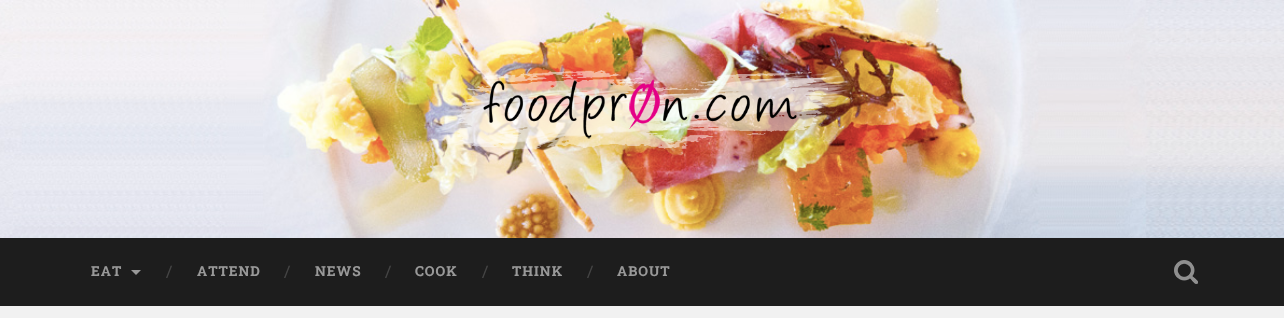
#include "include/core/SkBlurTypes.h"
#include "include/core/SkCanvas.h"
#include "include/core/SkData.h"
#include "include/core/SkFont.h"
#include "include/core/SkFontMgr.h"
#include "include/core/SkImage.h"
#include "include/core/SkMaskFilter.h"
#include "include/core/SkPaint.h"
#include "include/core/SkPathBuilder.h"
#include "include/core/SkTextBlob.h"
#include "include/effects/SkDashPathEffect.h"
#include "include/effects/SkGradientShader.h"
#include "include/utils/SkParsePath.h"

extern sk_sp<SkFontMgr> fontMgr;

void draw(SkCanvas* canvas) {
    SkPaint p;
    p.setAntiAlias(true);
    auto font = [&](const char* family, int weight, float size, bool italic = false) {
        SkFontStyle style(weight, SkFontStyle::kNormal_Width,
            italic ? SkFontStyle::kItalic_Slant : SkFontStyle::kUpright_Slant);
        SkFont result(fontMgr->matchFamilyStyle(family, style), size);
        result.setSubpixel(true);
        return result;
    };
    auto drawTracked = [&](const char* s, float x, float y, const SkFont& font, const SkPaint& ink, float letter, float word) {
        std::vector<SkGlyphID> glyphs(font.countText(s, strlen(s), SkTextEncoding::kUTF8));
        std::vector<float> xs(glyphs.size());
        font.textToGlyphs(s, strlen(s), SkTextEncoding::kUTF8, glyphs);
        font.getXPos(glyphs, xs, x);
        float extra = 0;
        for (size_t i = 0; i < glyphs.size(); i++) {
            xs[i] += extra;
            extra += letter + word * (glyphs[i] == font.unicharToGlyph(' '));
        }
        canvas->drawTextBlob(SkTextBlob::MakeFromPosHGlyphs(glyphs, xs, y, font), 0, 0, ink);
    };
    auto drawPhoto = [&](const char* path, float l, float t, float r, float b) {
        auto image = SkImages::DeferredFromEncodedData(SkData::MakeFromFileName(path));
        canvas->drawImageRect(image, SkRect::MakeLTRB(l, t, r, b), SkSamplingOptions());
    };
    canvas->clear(0xFFF1F1F1);
    drawPhoto("media/1.png", 0, 0, 1284, 238);
    drawPhoto("media/2.png", 436, 70, 850, 150);
    p.setColor(0xFF1D1D1D);
    canvas->drawRect(SkRect::MakeLTRB(0, 238, 1284, 306), p);
    auto font1 = font("Roboto Slab", 700, 13.75f);
    p.setColor(0xFF999999);
    drawTracked("EAT", 91, 276, font1, p, 1, 0);
    canvas->drawPath(SkPathBuilder().moveTo(131, 270).lineTo(141, 270).lineTo(136, 275).close().detach(), p);
    auto font2 = font("Roboto Slab", 400, 16);
    p.setColor(0xFF444444);
    canvas->drawString("/", 166, 277, font2, p);
    p.setColor(0xFF999999);
    drawTracked("ATTEND", 197, 276, font1, p, 1, 0);
    p.setColor(0xFF444444);
    canvas->drawString("/", 284, 277, font2, p);
    p.setColor(0xFF999999);
    drawTracked("NEWS", 315, 276, font1, p, 1, 0);
    p.setColor(0xFF444444);
    canvas->drawString("/", 385, 277, font2, p);
    p.setColor(0xFF999999);
    drawTracked("COOK", 415, 276, font1, p, 1, 0);
    p.setColor(0xFF444444);
    canvas->drawString("/", 482, 277, font2, p);
    p.setColor(0xFF999999);
    drawTracked("THINK", 512, 276, font1, p, 1, 0);
    p.setColor(0xFF444444);
    canvas->drawString("/", 587, 277, font2, p);
    p.setColor(0xFF999999);
    drawTracked("ABOUT", 617, 276, font1, p, 1, 0);
    drawPhoto("media/3.png", 1174, 260, 1198, 284);
}
